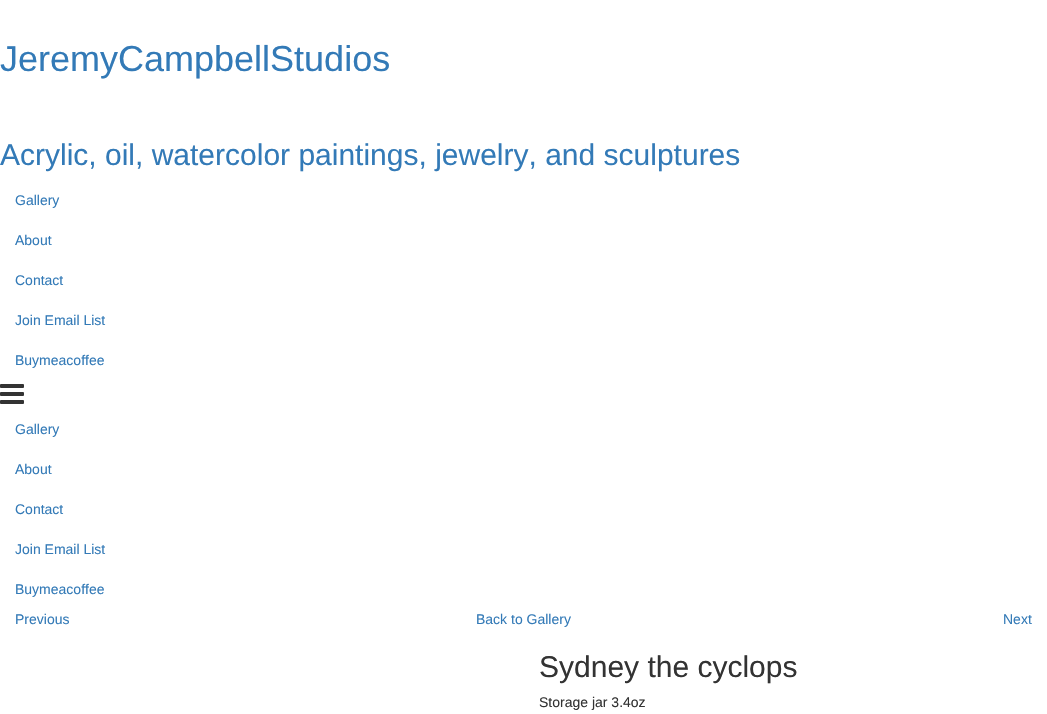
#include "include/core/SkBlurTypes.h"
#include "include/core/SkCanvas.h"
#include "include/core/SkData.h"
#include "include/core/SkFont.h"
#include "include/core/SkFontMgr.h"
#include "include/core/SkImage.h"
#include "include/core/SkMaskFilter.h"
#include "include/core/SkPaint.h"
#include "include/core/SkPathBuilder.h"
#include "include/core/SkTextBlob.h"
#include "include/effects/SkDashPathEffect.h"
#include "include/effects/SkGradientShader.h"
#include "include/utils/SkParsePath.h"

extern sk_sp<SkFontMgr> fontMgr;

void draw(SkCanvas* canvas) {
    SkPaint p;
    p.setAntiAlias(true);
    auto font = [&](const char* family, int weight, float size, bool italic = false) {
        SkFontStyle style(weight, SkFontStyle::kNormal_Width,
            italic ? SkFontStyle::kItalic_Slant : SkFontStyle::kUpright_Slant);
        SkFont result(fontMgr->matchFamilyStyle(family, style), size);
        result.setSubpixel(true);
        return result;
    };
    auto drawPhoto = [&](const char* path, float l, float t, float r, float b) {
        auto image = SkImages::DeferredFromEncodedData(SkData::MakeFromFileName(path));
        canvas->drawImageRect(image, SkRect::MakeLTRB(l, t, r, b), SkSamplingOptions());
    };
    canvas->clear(0xFFFFFFFF);
    auto font1 = font("Liberation Sans", 400, 36);
    p.setColor(0xFF337AB7);
    canvas->drawString("JeremyCampbellStudios", 0, 71, font1, p);
    auto font2 = font("Liberation Sans", 400, 30);
    canvas->drawString("Acrylic, oil, watercolor paintings, jewelry, and sculptures", 0, 165, font2, p);
    auto font3 = font("Liberation Sans", 400, 14);
    {
        const struct { const char* s; float x, y; } items[] = {
            {"Gallery", 15, 205},
            {"About", 15, 245},
            {"Contact", 15, 285},
            {"Join Email List", 15, 325},
            {"Buymeacoffee", 15, 365},
        };
        for (auto [s, x, y] : items) {
            canvas->drawString(s, x, y, font3, p);
        }
    }
    drawPhoto("media/1.png", 0, 384, 24, 404);
    {
        const struct { const char* s; float x, y; } items[] = {
            {"Gallery", 15, 434},
            {"About", 15, 474},
            {"Contact", 15, 514},
            {"Join Email List", 15, 554},
            {"Buymeacoffee", 15, 594},
            {"Previous", 15, 624},
            {"Back to Gallery", 476, 624},
            {"Next", 1003, 624},
        };
        for (auto [s, x, y] : items) {
            canvas->drawString(s, x, y, font3, p);
        }
    }
    p.setColor(0xFF333333);
    canvas->drawString("Sydney the cyclops", 539, 677, font2, p);
    canvas->drawString("Storage jar 3.4oz", 539, 707, font3, p);
}
